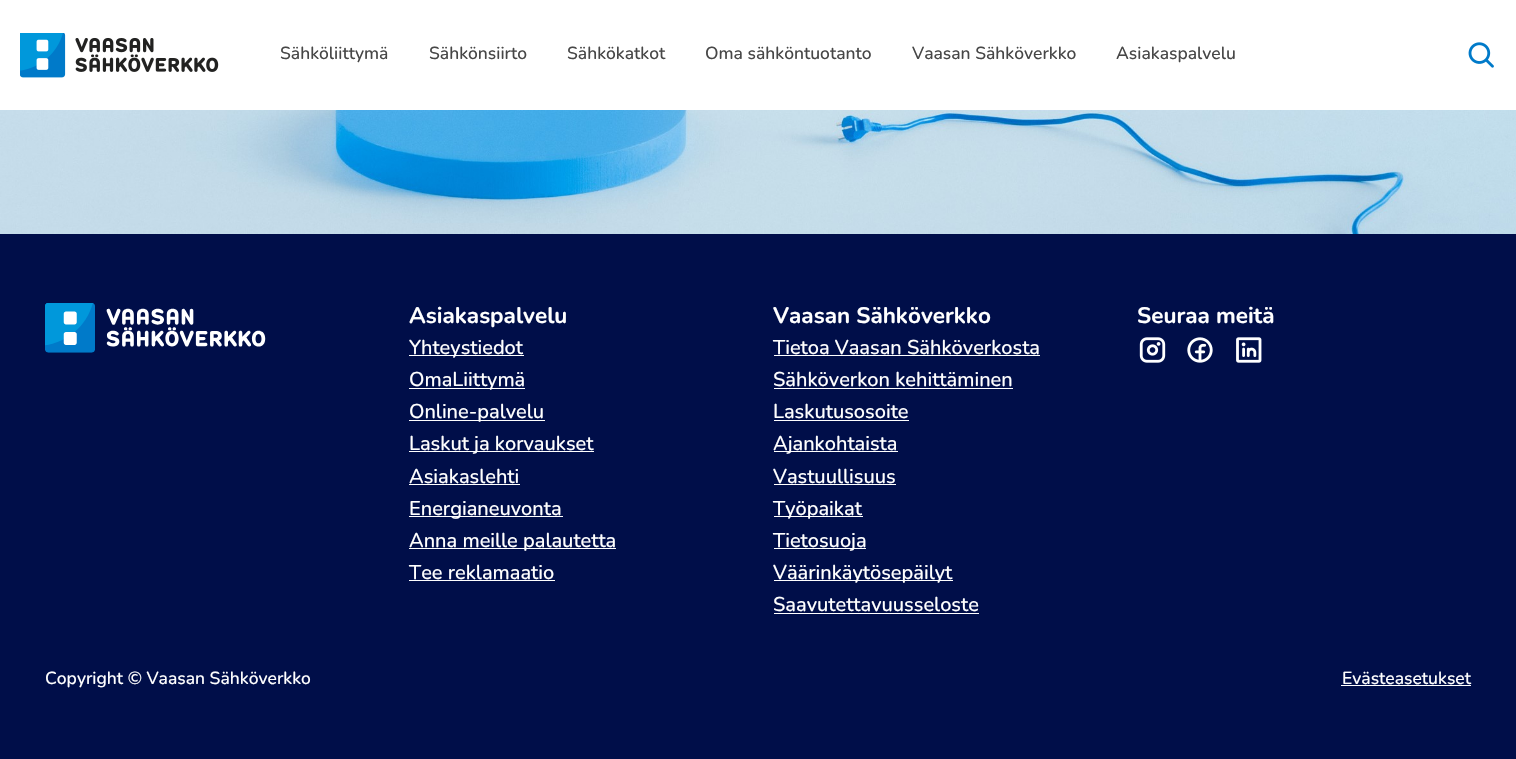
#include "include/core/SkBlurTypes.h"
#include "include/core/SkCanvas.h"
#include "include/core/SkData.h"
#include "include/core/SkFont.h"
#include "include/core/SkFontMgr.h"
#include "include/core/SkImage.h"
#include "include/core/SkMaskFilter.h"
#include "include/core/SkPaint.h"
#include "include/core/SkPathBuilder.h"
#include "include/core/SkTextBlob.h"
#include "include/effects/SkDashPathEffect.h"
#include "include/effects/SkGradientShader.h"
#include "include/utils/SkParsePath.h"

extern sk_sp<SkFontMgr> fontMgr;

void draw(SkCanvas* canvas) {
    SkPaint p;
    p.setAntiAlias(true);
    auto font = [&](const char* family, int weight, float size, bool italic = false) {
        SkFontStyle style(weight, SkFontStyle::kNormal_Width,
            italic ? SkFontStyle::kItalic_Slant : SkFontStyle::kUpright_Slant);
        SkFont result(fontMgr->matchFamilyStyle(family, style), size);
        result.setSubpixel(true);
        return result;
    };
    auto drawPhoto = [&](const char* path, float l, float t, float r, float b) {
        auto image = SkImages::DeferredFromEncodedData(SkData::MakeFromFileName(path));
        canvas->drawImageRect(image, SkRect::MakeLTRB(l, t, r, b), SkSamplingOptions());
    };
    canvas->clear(0xFFFFFFFF);
    drawPhoto("media/1.png", 20, 33, 219, 78);
    auto font1 = font("Nunito", 200, 17.5f);
    p.setColor(0xFF474747);
    {
        const struct { const char* s; float x, y; } items[] = {
            {"Sähköliittymä", 280, 59},
            {"Sähkönsiirto", 429, 59},
            {"Sähkökatkot", 567, 59},
            {"Oma sähköntuotanto", 705, 59},
            {"Vaasan Sähköverkko", 912, 59},
            {"Asiakaspalvelu", 1116, 59},
        };
        for (auto [s, x, y] : items) {
            canvas->drawString(s, x, y, font1, p);
        }
    }
    drawPhoto("media/2.png", 1468, 42, 1494, 68);
    drawPhoto("media/3.png", 0, 110, 1516, 234);
    p.setColor(0xFF000E49);
    canvas->drawRect(SkRect::MakeLTRB(0, 234, 1516, 759), p);
    drawPhoto("media/4.png", 45, 303, 266, 353);
    auto font2 = font("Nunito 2", 200, 22.5f);
    p.setColor(0xFFFFFFFF);
    canvas->drawString("Asiakaspalvelu", 409, 323, font2, p);
    canvas->drawRect(SkRect::MakeLTRB(409, 355, 524, 356), p);
    auto font3 = font("Nunito", 200, 20);
    canvas->drawString("Yhteystiedot", 409, 354, font3, p);
    canvas->drawRect(SkRect::MakeLTRB(409, 388, 525, 389), p);
    canvas->drawString("OmaLiittymä", 409, 386, font3, p);
    canvas->drawRect(SkRect::MakeLTRB(409, 420, 545, 421), p);
    canvas->drawString("Online-palvelu", 409, 418, font3, p);
    canvas->drawRect(SkRect::MakeLTRB(409, 451, 594, 452), p);
    canvas->drawString("Laskut ja korvaukset", 409, 450, font3, p);
    canvas->drawString("Asiakaslehti", 409, 483, font3, p);
    canvas->drawRect(SkRect::MakeLTRB(409, 484, 520, 485), p);
    canvas->drawRect(SkRect::MakeLTRB(409, 516, 563, 517), p);
    canvas->drawString("Energianeuvonta", 409, 515, font3, p);
    canvas->drawRect(SkRect::MakeLTRB(409, 548, 616, 549), p);
    canvas->drawString("Anna meille palautetta", 409, 547, font3, p);
    canvas->drawString("Tee reklamaatio", 409, 579, font3, p);
    canvas->drawRect(SkRect::MakeLTRB(409, 580, 555, 581), p);
    canvas->drawString("Vaasan Sähköverkko", 773, 323, font2, p);
    canvas->drawString("Tietoa Vaasan Sähköverkosta", 773, 354, font3, p);
    canvas->drawRect(SkRect::MakeLTRB(774, 355, 1040, 356), p);
    canvas->drawString("Sähköverkon kehittäminen", 773, 386, font3, p);
    canvas->drawRect(SkRect::MakeLTRB(774, 388, 1013, 389), p);
    canvas->drawString("Laskutusosoite", 773, 418, font3, p);
    canvas->drawRect(SkRect::MakeLTRB(774, 420, 909, 421), p);
    canvas->drawRect(SkRect::MakeLTRB(774, 451, 898, 452), p);
    canvas->drawString("Ajankohtaista", 773, 450, font3, p);
    canvas->drawString("Vastuullisuus", 773, 483, font3, p);
    canvas->drawRect(SkRect::MakeLTRB(774, 484, 896, 485), p);
    canvas->drawRect(SkRect::MakeLTRB(774, 516, 863, 517), p);
    canvas->drawString("Työpaikat", 773, 515, font3, p);
    canvas->drawRect(SkRect::MakeLTRB(774, 548, 866, 549), p);
    canvas->drawString("Tietosuoja", 773, 547, font3, p);
    canvas->drawRect(SkRect::MakeLTRB(774, 580, 953, 581), p);
    canvas->drawString("Väärinkäytösepäilyt", 773, 579, font3, p);
    canvas->drawString("Saavutettavuusseloste", 773, 611, font3, p);
    canvas->drawRect(SkRect::MakeLTRB(774, 613, 979, 614), p);
    canvas->drawString("Seuraa meitä", 1137, 323, font2, p);
    drawPhoto("media/5.png", 1139, 337, 1166, 363);
    drawPhoto("media/6.png", 1187, 337, 1213, 363);
    drawPhoto("media/7.png", 1236, 337, 1262, 363);
    canvas->drawString("Copyright © Vaasan Sähköverkko", 45, 684, font1, p);
    canvas->drawString("Evästeasetukset", 1342, 684, font1, p);
    canvas->drawRect(SkRect::MakeLTRB(1341, 685, 1471, 686), p);
}
